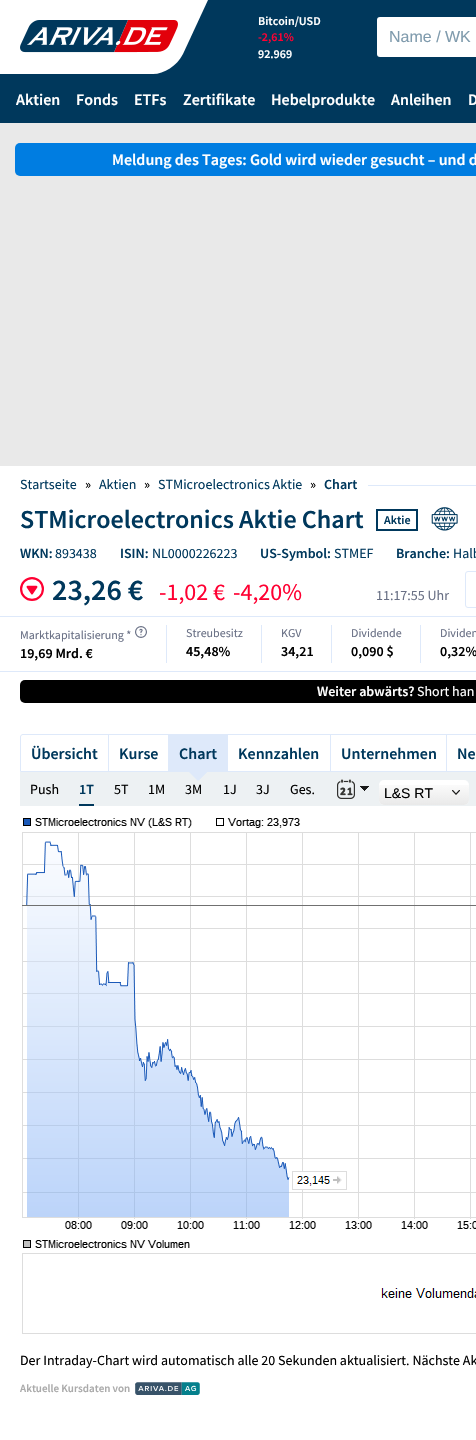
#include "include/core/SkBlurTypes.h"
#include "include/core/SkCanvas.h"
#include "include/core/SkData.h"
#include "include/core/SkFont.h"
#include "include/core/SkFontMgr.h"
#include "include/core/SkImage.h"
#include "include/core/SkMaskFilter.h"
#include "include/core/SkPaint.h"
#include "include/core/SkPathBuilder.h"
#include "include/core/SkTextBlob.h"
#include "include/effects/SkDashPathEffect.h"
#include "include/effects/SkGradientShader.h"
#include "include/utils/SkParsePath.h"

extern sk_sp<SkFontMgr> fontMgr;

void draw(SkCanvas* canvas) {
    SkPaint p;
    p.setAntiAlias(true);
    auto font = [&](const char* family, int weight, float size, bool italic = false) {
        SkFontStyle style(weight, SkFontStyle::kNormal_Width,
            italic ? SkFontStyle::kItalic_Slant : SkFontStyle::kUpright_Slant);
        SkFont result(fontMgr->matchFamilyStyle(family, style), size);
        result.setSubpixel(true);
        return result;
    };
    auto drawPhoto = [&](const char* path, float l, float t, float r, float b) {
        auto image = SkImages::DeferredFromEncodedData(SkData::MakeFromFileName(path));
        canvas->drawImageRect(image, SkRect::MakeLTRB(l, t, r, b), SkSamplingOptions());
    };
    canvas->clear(0xFFFFFFFF);
    p.setColor(0xFF00385C);
    canvas->drawRect(SkRect::MakeLTRB(0, 0, 476, 123), p);
    p.setColor(0xFFFFFFFF);
    canvas->drawPath(SkPathBuilder().moveTo(0, 0).lineTo(208, 0).lineTo(183, 54).cubicTo(177, 66, 164, 74, 153, 74).lineTo(-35, 74).close().detach(), p);
    drawPhoto("media/1.png", 20, 20, 178, 53);
    auto font1 = font("Source Sans Pro", 600, 12);
    canvas->drawString("Bitcoin/USD", 258, 25, font1, p);
    p.setColor(0xFFFF0032);
    canvas->drawString("-2,61%", 258, 41, font1, p);
    p.setColor(0xFFFFFFFF);
    canvas->drawString("92.969", 258, 58, font1, p);
    canvas->drawRoundRect(SkRect::MakeLTRB(377, 17, 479, 57), 3, 3, p);
    auto font2 = font("Liberation Sans", 400, 16);
    p.setColor(0xFF7F9BAD);
    canvas->drawString("Name / WK", 389, 42, font2, p);
    auto font3 = font("Source Sans Pro", 600, 16);
    p.setColor(0xFFFFFFFF);
    {
        const struct { const char* s; float x, y; } items[] = {
            {"Aktien", 16, 105},
            {"Fonds", 76, 105},
            {"ETFs", 134, 105},
            {"Zertifikate", 183, 105},
            {"Hebelprodukte", 271, 105},
            {"Anleihen", 391, 105},
            {"D", 468, 105},
        };
        for (auto [s, x, y] : items) {
            canvas->drawString(s, x, y, font3, p);
        }
    }
    p.setColor(0xFFE9E9E9);
    canvas->drawRect(SkRect::MakeLTRB(0, 123, 476, 466), p);
    p.setColor(0xFF007DE1);
    canvas->drawRoundRect(SkRect::MakeLTRB(15, 143, 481, 176), 5, 5, p);
    p.setColor(0xFFFFFFFF);
    canvas->drawString("Meldung des Tages: Gold wird wieder gesucht – und d", 112, 165, font3, p);
    auto font4 = font("Source Sans Pro", 400, 14);
    p.setColor(0xFF00385C);
    canvas->drawString("Startseite", 20, 489, font4, p);
    p.setColor(0xFF000000);
    canvas->drawString("»", 85, 489, font4, p);
    p.setColor(0xFF00385C);
    canvas->drawString("Aktien", 99, 489, font4, p);
    p.setColor(0xFF000000);
    canvas->drawString("»", 144, 489, font4, p);
    p.setColor(0xFF00385C);
    canvas->drawString("STMicroelectronics Aktie", 158, 489, font4, p);
    p.setColor(0xFF000000);
    canvas->drawString("»", 310, 489, font4, p);
    auto font5 = font("Source Sans Pro", 600, 14);
    p.setColor(0xFF00385C);
    canvas->drawString("Chart", 324, 489, font5, p);
    p.setColor(0xFFDEE9FA);
    canvas->drawRect(SkRect::MakeLTRB(368, 485, 476, 486), p);
    auto font6 = font("Source Sans Pro", 600, 26);
    p.setColor(0xFF00385C);
    canvas->drawString("STMicroelectronics Aktie Chart", 20, 528, font6, p);
    p.setStyle(SkPaint::kStroke_Style);
    p.setStrokeWidth(2);
    canvas->drawRect(SkRect::MakeLTRB(377, 510, 417, 530), p);
    p.setStyle(SkPaint::kFill_Style);
    canvas->drawString("Aktie", 384, 524, font1, p);
    drawPhoto("media/2.png", 431, 507, 458, 531);
    canvas->drawString("WKN:", 20, 558, font5, p);
    canvas->drawString("893438", 55, 558, font4, p);
    canvas->drawString("ISIN:", 120, 558, font5, p);
    canvas->drawString("NL0000226223", 152, 558, font4, p);
    canvas->drawString("US-Symbol:", 260, 558, font5, p);
    canvas->drawString("STMEF", 334, 558, font4, p);
    canvas->drawString("Branche:", 396, 558, font5, p);
    canvas->drawString("Halb", 453, 558, font4, p);
    drawPhoto("media/3.png", 20, 577, 44, 601);
    auto font7 = font("Source Sans Pro", 600, 30);
    canvas->drawString("23,26 €", 52, 600, font7, p);
    auto font8 = font("Source Sans Pro", 400, 24);
    p.setColor(0xFFFF0032);
    canvas->drawString("-1,02 €", 159, 600, font8, p);
    canvas->drawString("-4,20%", 233, 600, font8, p);
    p.setColor(0xFF697085);
    canvas->drawString("11:17:55 Uhr", 376, 600, font4, p);
    p.setStyle(SkPaint::kStroke_Style);
    p.setStrokeWidth(1);
    p.setColor(0xFFDEE9FA);
    canvas->drawRoundRect(SkRect::MakeLTRB(465.5f, 571.5f, 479.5f, 607.5f), 2.5f, 2.5f, p);
    p.setStyle(SkPaint::kFill_Style);
    canvas->drawRect(SkRect::MakeLTRB(0, 616, 476, 617), p);
    canvas->drawRect(SkRect::MakeLTRB(0, 671, 476, 672), p);
    auto font9 = font("Source Sans Pro", 400, 12);
    p.setColor(0xFF697085);
    canvas->drawString("Marktkapitalisierung *", 20, 639, font9, p);
    drawPhoto("media/4.png", 135, 626, 147, 638);
    p.setColor(0xFF000000);
    canvas->drawString("19,69 Mrd. €", 20, 658, font5, p);
    p.setColor(0xFFDEE9FA);
    canvas->drawRect(SkRect::MakeLTRB(166, 625, 167, 663), p);
    p.setColor(0xFF697085);
    canvas->drawString("Streubesitz", 186, 637, font9, p);
    p.setColor(0xFF000000);
    canvas->drawString("45,48%", 186, 656, font5, p);
    p.setColor(0xFFDEE9FA);
    canvas->drawRect(SkRect::MakeLTRB(261, 625, 262, 663), p);
    p.setColor(0xFF697085);
    canvas->drawString("KGV", 281, 637, font9, p);
    p.setColor(0xFF000000);
    canvas->drawString("34,21", 281, 656, font5, p);
    p.setColor(0xFFDEE9FA);
    canvas->drawRect(SkRect::MakeLTRB(331, 625, 332, 663), p);
    p.setColor(0xFF697085);
    canvas->drawString("Dividende", 351, 637, font9, p);
    p.setColor(0xFF000000);
    canvas->drawString("0,090 $", 351, 656, font5, p);
    p.setColor(0xFFDEE9FA);
    canvas->drawRect(SkRect::MakeLTRB(420, 625, 421, 663), p);
    p.setColor(0xFF697085);
    canvas->drawString("Dividen", 440, 637, font9, p);
    p.setColor(0xFF000000);
    canvas->drawString("0,32%", 440, 656, font5, p);
    canvas->drawRoundRect(SkRect::MakeLTRB(20, 680, 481, 703), 5, 5, p);
    p.setColor(0xFFFFFFFF);
    canvas->drawString("Weiter abwärts?", 317, 696, font5, p);
    canvas->drawString("Short han", 417, 696, font4, p);
    p.setStyle(SkPaint::kStroke_Style);
    p.setColor(0xFFDEE9FA);
    canvas->drawPath(SkPathBuilder().moveTo(23, 734.5f).lineTo(108.5f, 734.5f).lineTo(108.5f, 771.5f).lineTo(20.5f, 771.5f).lineTo(20.5f, 737).cubicTo(20.5f, 735.5f, 21.5f, 734.5f, 23, 734.5f).close().detach(), p);
    p.setStyle(SkPaint::kFill_Style);
    p.setColor(0xFF00385C);
    canvas->drawString("Übersicht", 31, 759, font3, p);
    p.setStyle(SkPaint::kStroke_Style);
    p.setColor(0xFFDEE9FA);
    canvas->drawRect(SkRect::MakeLTRB(108.5f, 734.5f, 168.5f, 771.5f), p);
    p.setStyle(SkPaint::kFill_Style);
    p.setColor(0xFF00385C);
    canvas->drawString("Kurse", 119, 759, font3, p);
    p.setColor(0xFFDEE9FA);
    canvas->drawRect(SkRect::MakeLTRB(169, 734, 227, 772), p);
    p.setColor(0xFF00385C);
    canvas->drawString("Chart", 179, 759, font3, p);
    p.setColor(0xFFEDF1F3);
    canvas->drawRect(SkRect::MakeLTRB(20, 772, 476, 806), p);
    p.setColor(0xFFDEE9FA);
    canvas->drawPath(SkPathBuilder().moveTo(188, 771).lineTo(208, 771).lineTo(198, 781).close().detach(), p);
    canvas->drawPath(SkPathBuilder().moveTo(190, 771).lineTo(208, 771).lineTo(199, 780).close().detach(), p);
    p.setStyle(SkPaint::kStroke_Style);
    canvas->drawRect(SkRect::MakeLTRB(227.5f, 734.5f, 330.5f, 771.5f), p);
    p.setStyle(SkPaint::kFill_Style);
    p.setColor(0xFF00385C);
    canvas->drawString("Kennzahlen", 238, 759, font3, p);
    p.setStyle(SkPaint::kStroke_Style);
    p.setColor(0xFFDEE9FA);
    canvas->drawRect(SkRect::MakeLTRB(330.5f, 734.5f, 446.5f, 771.5f), p);
    p.setStyle(SkPaint::kFill_Style);
    p.setColor(0xFF00385C);
    canvas->drawString("Unternehmen", 341, 759, font3, p);
    p.setStyle(SkPaint::kStroke_Style);
    p.setColor(0xFFDEE9FA);
    canvas->drawRect(SkRect::MakeLTRB(446.5f, 734.5f, 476.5f, 771.5f), p);
    p.setStyle(SkPaint::kFill_Style);
    p.setColor(0xFF00385C);
    canvas->drawString("Ne", 457, 759, font3, p);
    p.setColor(0xFF000000);
    canvas->drawString("Push", 30, 794, font4, p);
    p.setColor(0xFF00385C);
    canvas->drawRect(SkRect::MakeLTRB(79, 804, 94, 806), p);
    canvas->drawString("1T", 79, 794, font5, p);
    p.setColor(0xFF000000);
    {
        const struct { const char* s; float x, y; } items[] = {
            {"5T", 114, 794},
            {"1M", 148, 794},
            {"3M", 185, 794},
            {"1J", 223, 794},
            {"3J", 256, 794},
            {"Ges.", 290, 794},
        };
        for (auto [s, x, y] : items) {
            canvas->drawString(s, x, y, font4, p);
        }
    }
    drawPhoto("media/5.png", 337, 779, 355, 799);
    drawPhoto("media/6.png", 360, 786, 369, 791);
    p.setColor(0xFFFFFFFF);
    canvas->drawRoundRect(SkRect::MakeLTRB(379, 780, 469, 805), 5, 5, p);
    drawPhoto("media/7.png", 379, 785, 469, 805);
    auto font10 = font("Liberation Sans", 400, 14);
    p.setColor(0xFF000000);
    canvas->drawString("L&S RT", 384, 798, font10, p);
    drawPhoto("media/8.png", 22, 818, 476, 1334);
    canvas->drawString("Der Intraday-Chart wird automatisch alle 20 Sekunden aktualisiert. Nächste Ak", 20, 1365, font4, p);
    auto font11 = font("Source Sans Pro", 600, 11);
    p.setColor(0xFFAAAAAA);
    canvas->drawString("Aktuelle Kursdaten von", 20, 1392, font11, p);
    drawPhoto("media/9.png", 135, 1382, 200, 1395);
}
